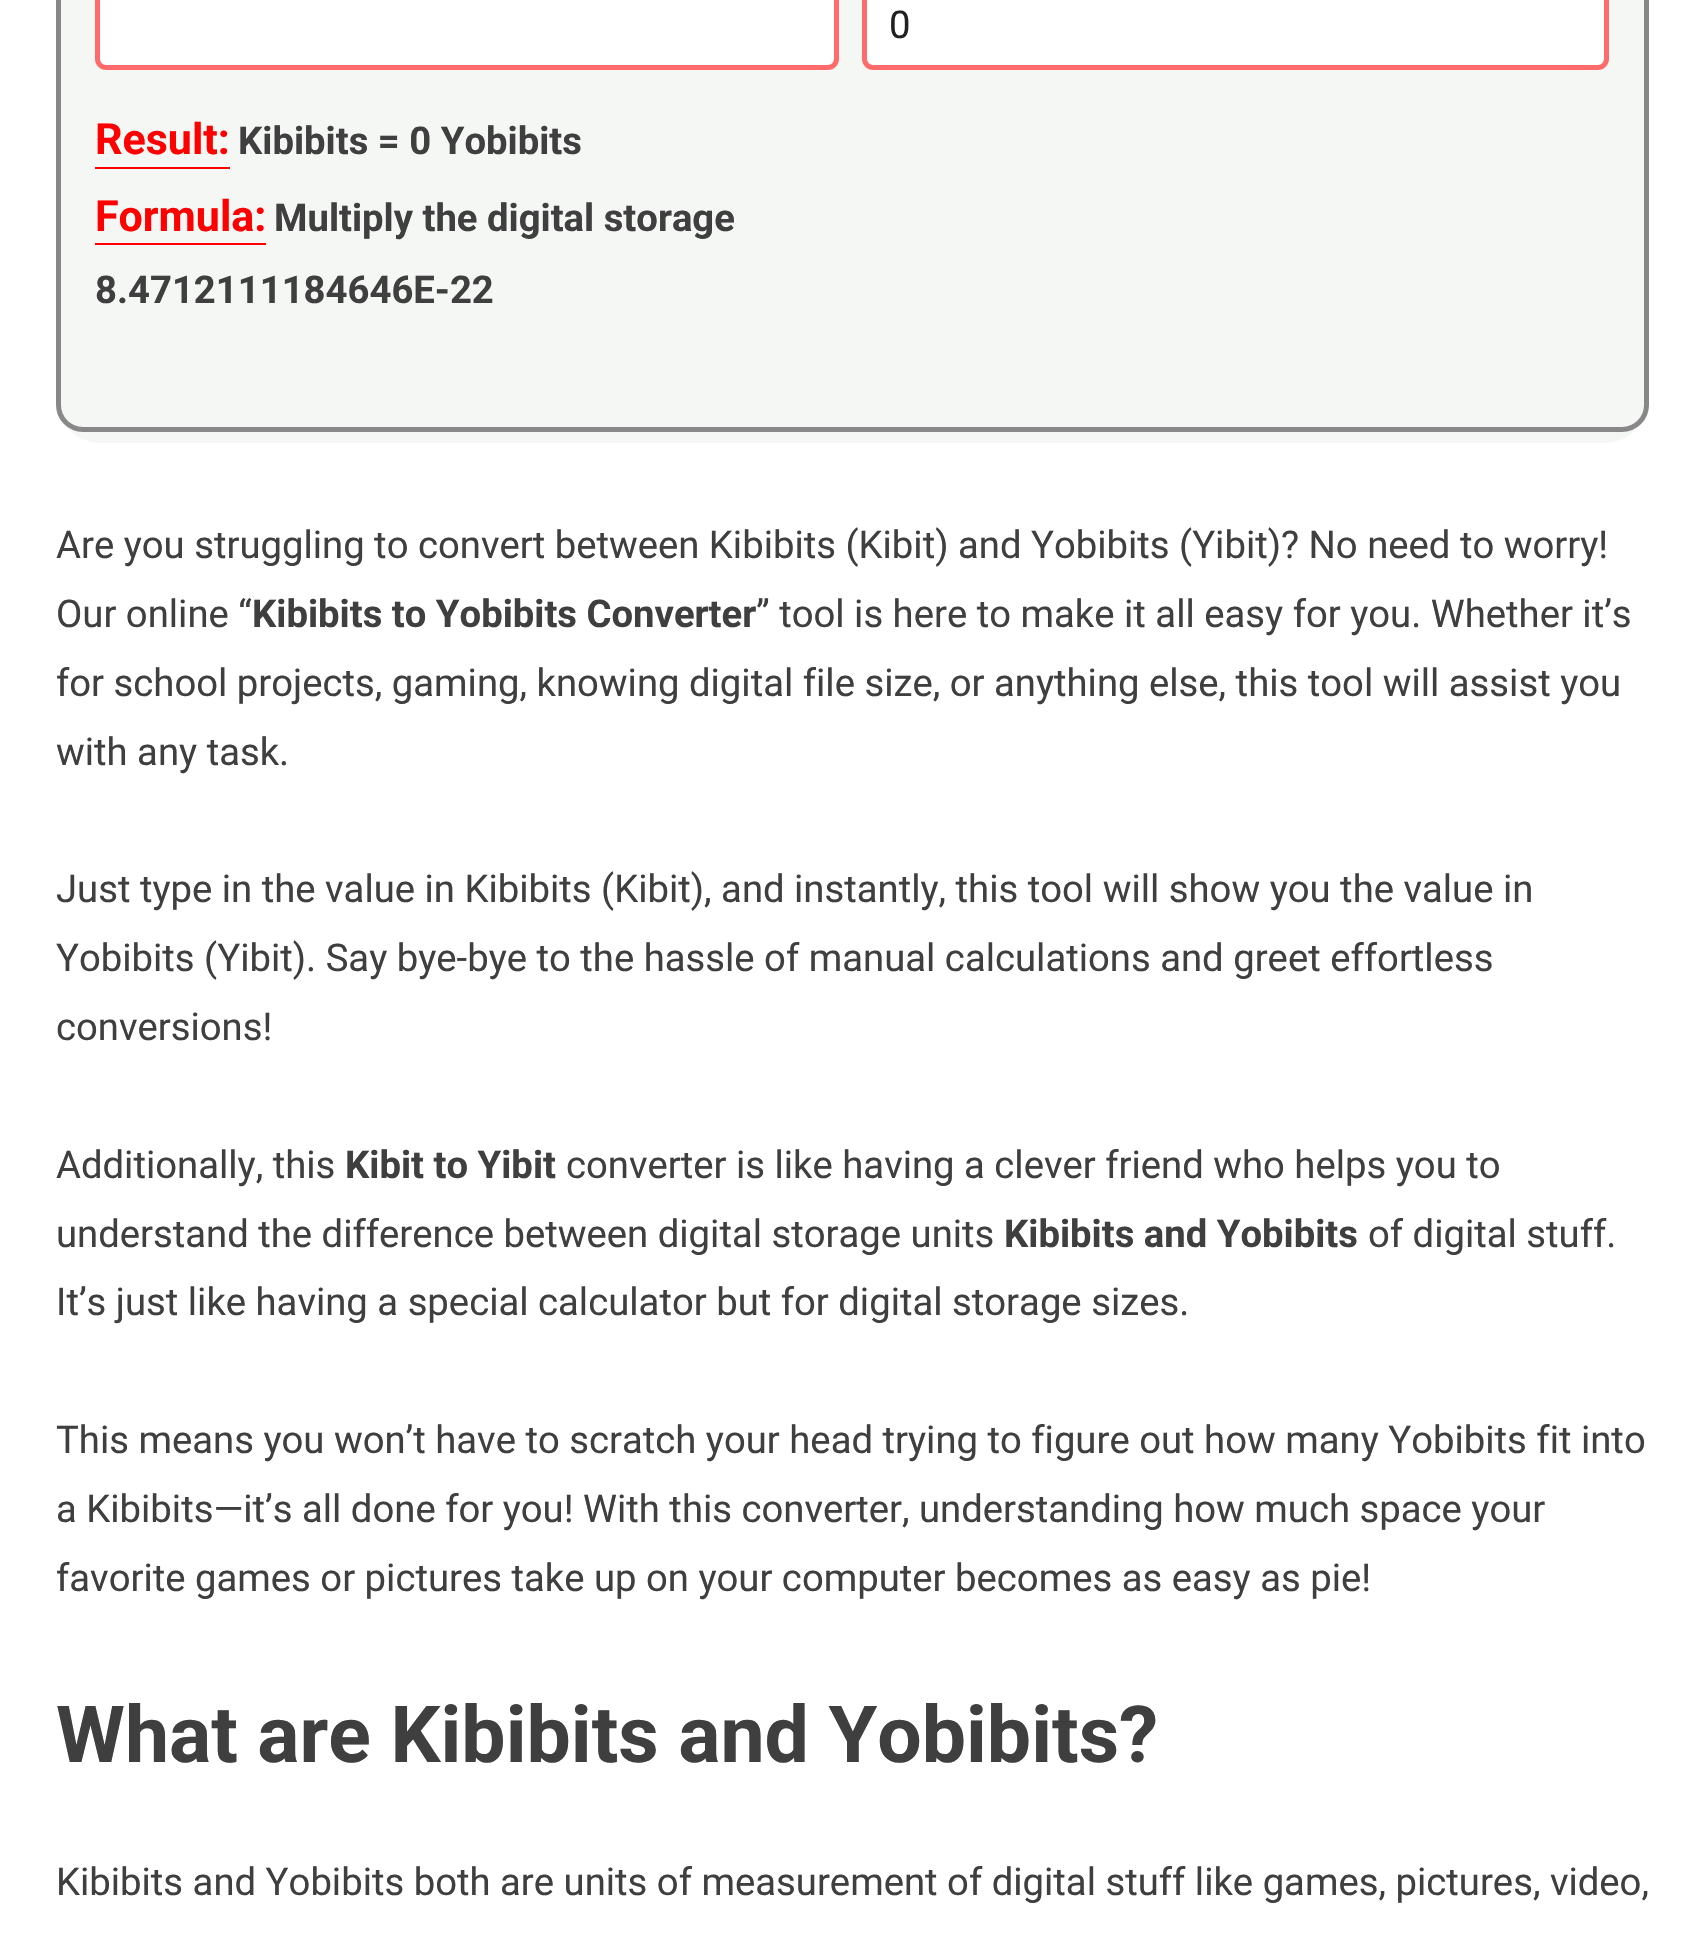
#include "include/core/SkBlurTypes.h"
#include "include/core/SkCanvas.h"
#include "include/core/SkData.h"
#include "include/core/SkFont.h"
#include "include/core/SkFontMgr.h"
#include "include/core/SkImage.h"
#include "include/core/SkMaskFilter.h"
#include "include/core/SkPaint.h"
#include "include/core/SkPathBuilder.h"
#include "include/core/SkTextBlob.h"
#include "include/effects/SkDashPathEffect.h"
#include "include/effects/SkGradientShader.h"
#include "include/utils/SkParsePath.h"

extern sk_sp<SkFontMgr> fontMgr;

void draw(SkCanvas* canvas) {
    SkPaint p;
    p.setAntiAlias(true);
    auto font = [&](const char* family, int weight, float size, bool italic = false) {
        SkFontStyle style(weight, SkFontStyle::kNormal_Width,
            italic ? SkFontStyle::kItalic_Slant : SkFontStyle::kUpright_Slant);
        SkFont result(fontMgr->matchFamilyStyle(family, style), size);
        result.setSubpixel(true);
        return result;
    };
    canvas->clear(0xFFFFFFFF);
    p.setColor(0xFFF5F7F5);
    canvas->drawRoundRect(SkRect::MakeLTRB(56, -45, 1649, 443), 45, 45, p);
    p.setStyle(SkPaint::kStroke_Style);
    p.setStrokeWidth(5);
    p.setColor(0xFF888888);
    canvas->drawRoundRect(SkRect::MakeLTRB(58.5f, -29.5f, 1646.5f, 429.5f), 24.5f, 24.5f, p);
    p.setStyle(SkPaint::kFill_Style);
    p.setColor(0xFFFFFFFF);
    canvas->drawRoundRect(SkRect::MakeLTRB(97.5f, -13.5f, 836.5f, 67.5f), 8.5f, 8.5f, p);
    p.setStyle(SkPaint::kStroke_Style);
    p.setColor(0xFFFF6B6B);
    canvas->drawRoundRect(SkRect::MakeLTRB(97.5f, -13.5f, 836.5f, 67.5f), 8.5f, 8.5f, p);
    p.setStyle(SkPaint::kFill_Style);
    p.setColor(0xFFFFFFFF);
    canvas->drawRoundRect(SkRect::MakeLTRB(864.5f, -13.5f, 1606.5f, 67.5f), 8.5f, 8.5f, p);
    p.setStyle(SkPaint::kStroke_Style);
    p.setColor(0xFFFF6B6B);
    canvas->drawRoundRect(SkRect::MakeLTRB(864.5f, -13.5f, 1606.5f, 67.5f), 8.5f, 8.5f, p);
    auto font1 = font("Roboto", 400, 38.25f);
    p.setStyle(SkPaint::kFill_Style);
    p.setColor(0xFF222222);
    canvas->drawString("0", 889, 38, font1, p);
    auto font2 = font("Roboto", 700, 43);
    p.setColor(0xFFFF0000);
    canvas->drawString("Result:", 95, 154, font2, p);
    canvas->drawRect(SkRect::MakeLTRB(95, 167, 230, 169), p);
    auto font3 = font("Roboto", 700, 38.25f);
    p.setColor(0xFF3F3F3F);
    canvas->drawString("Kibibits = 0 Yobibits", 238, 154, font3, p);
    p.setColor(0xFFFF0000);
    canvas->drawString("Formula:", 95, 231, font2, p);
    p.setColor(0xFF3F3F3F);
    canvas->drawString("Multiply the digital storage", 274, 231, font3, p);
    p.setColor(0xFFFF0000);
    canvas->drawRect(SkRect::MakeLTRB(95, 243, 266, 245), p);
    p.setColor(0xFF3F3F3F);
    canvas->drawString("8.4712111184646E-22", 95, 303, font3, p);
    canvas->drawString("Are you struggling to convert between Kibibits (Kibit) and Yobibits (Yibit)? No need to worry!", 56, 558, font1, p);
    canvas->drawString("Our online “", 56, 627, font1, p);
    canvas->drawString("Kibibits to Yobibits Converter", 252, 627, font3, p);
    {
        const struct { const char* s; float x, y; } items[] = {
            {"” tool is here to make it all easy for you. Whether it’s", 756, 627},
            {"for school projects, gaming, knowing digital file size, or anything else, this tool will assist you", 56, 696},
            {"with any task.", 56, 765},
            {"Just type in the value in Kibibits (Kibit), and instantly, this tool will show you the value in", 56, 902},
            {"Yobibits (Yibit). Say bye-bye to the hassle of manual calculations and greet effortless", 56, 971},
            {"conversions!", 56, 1040},
            {"Additionally, this", 56, 1178},
        };
        for (auto [s, x, y] : items) {
            canvas->drawString(s, x, y, font1, p);
        }
    }
    canvas->drawString("Kibit to Yibit", 345, 1178, font3, p);
    canvas->drawString("converter is like having a clever friend who helps you to", 566, 1178, font1, p);
    canvas->drawString("understand the difference between digital storage units", 56, 1247, font1, p);
    canvas->drawString("Kibibits and Yobibits", 1004, 1247, font3, p);
    {
        const struct { const char* s; float x, y; } items[] = {
            {"of digital stuff.", 1368, 1247},
            {"It’s just like having a special calculator but for digital storage sizes.", 56, 1315},
            {"This means you won’t have to scratch your head trying to figure out how many Yobibits fit into", 56, 1453},
            {"a Kibibits—it’s all done for you! With this converter, understanding how much space your", 56, 1522},
            {"favorite games or pictures take up on your computer becomes as easy as pie!", 56, 1591},
        };
        for (auto [s, x, y] : items) {
            canvas->drawString(s, x, y, font1, p);
        }
    }
    auto font4 = font("Roboto", 700, 78.75f);
    canvas->drawString("What are Kibibits and Yobibits?", 56, 1762, font4, p);
    canvas->drawString("Kibibits and Yobibits both are units of measurement of digital stuff like games, pictures, video,", 56, 1895, font1, p);
}
